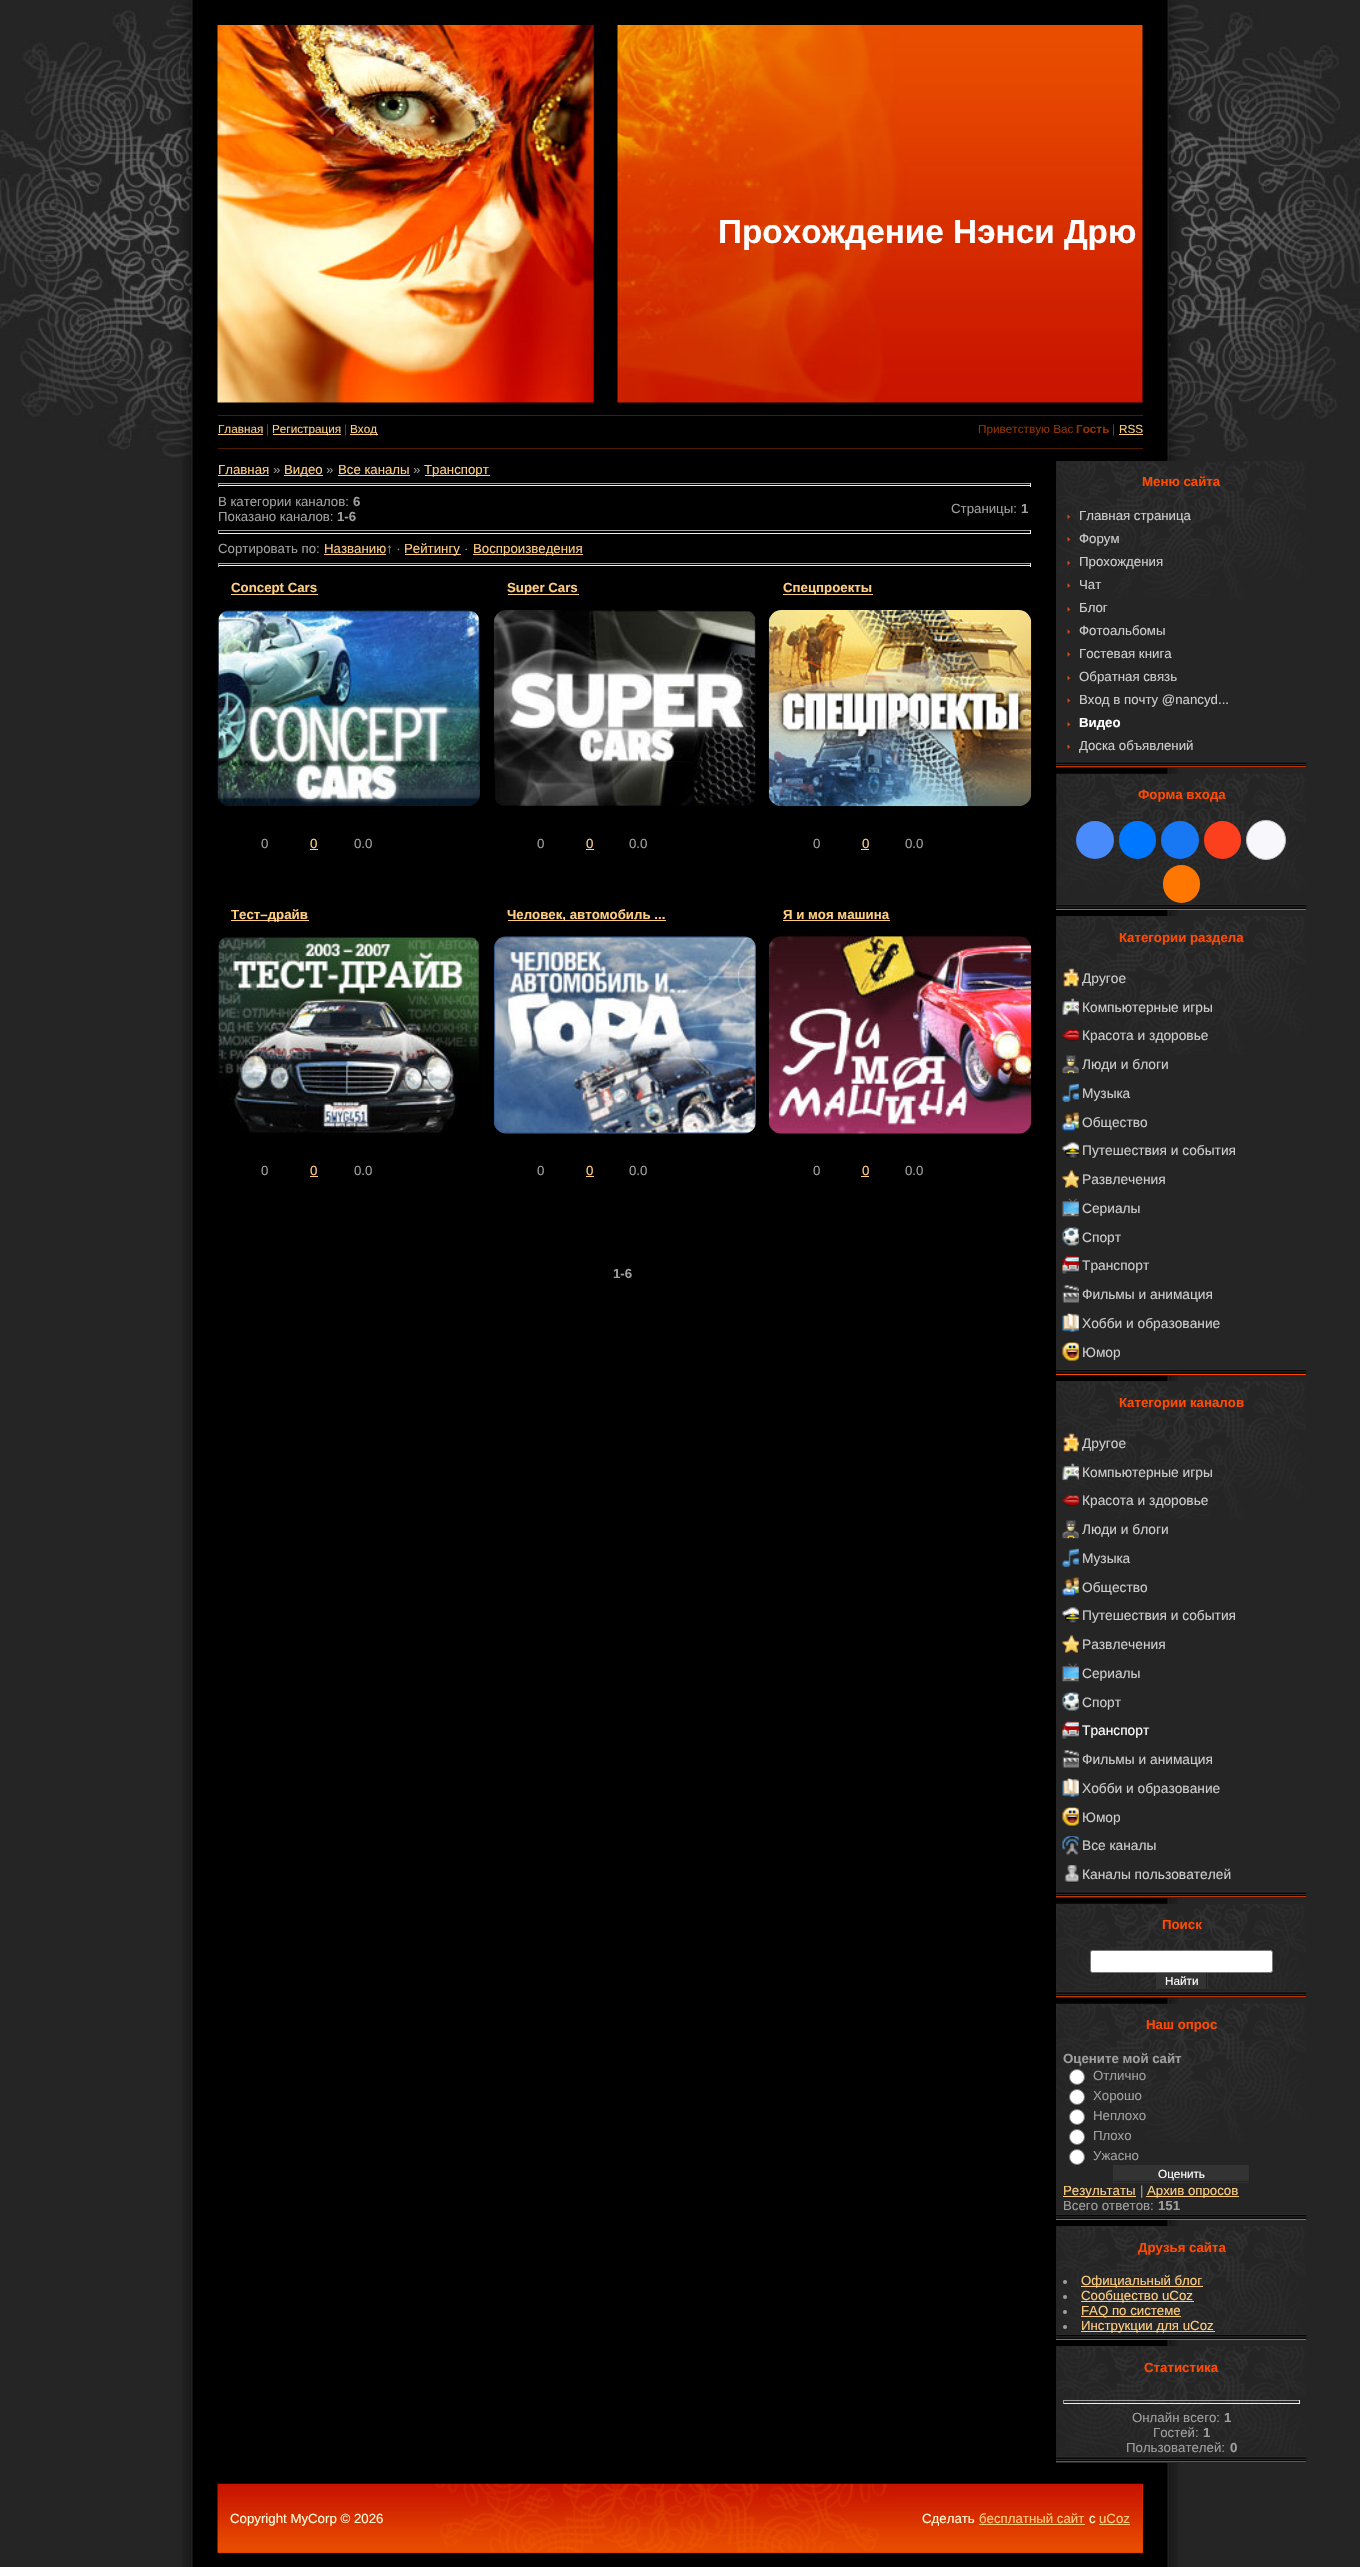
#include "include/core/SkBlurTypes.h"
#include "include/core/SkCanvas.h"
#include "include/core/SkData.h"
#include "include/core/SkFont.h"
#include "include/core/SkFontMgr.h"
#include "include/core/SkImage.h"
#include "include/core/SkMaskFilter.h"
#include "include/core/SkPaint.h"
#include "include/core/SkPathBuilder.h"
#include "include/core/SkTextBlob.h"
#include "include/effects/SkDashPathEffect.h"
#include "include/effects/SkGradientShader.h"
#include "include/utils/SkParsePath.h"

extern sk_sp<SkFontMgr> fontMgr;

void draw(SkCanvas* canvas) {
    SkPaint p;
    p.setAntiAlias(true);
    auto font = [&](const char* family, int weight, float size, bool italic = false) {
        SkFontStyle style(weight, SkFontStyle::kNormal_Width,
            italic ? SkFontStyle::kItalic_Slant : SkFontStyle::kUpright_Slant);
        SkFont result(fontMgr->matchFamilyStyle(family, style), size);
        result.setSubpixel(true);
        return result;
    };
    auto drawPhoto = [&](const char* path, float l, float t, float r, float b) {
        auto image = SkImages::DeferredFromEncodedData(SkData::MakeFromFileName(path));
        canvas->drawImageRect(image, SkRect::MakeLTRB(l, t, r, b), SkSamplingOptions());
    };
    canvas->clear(0xFF252525);
    drawPhoto("media/1.png", 182, 460, 1178, 2567);
    drawPhoto("media/2.png", 0, 0, 1360, 460);
    drawPhoto("media/3.png", 217, 25, 1143, 403);
    auto font1 = font("Liberation Sans", 700, 33.3f);
    p.setColor(0xFFFFFFFF);
    canvas->drawString("Прохождение Нэнси Дрю", 718, 243, font1, p);
    p.setColor(0xFF4D1C00);
    canvas->drawRect(SkRect::MakeLTRB(218, 415, 1143, 416), p);
    canvas->drawRect(SkRect::MakeLTRB(218, 448, 1143, 449), p);
    auto font2 = font("Liberation Sans", 400, 11.75f);
    p.setColor(0xFFFFCD7F);
    canvas->drawString("Главная", 218, 433, font2, p);
    canvas->drawRect(SkRect::MakeLTRB(218, 434, 263, 435), p);
    p.setColor(0xFF903400);
    canvas->drawString("|", 266, 433, font2, p);
    p.setColor(0xFFFFCD7F);
    canvas->drawRect(SkRect::MakeLTRB(273, 434, 341, 435), p);
    canvas->drawString("Регистрация", 272, 433, font2, p);
    p.setColor(0xFF903400);
    canvas->drawString("|", 344, 433, font2, p);
    p.setColor(0xFFFFCD7F);
    canvas->drawRect(SkRect::MakeLTRB(350, 434, 378, 435), p);
    canvas->drawString("Вход", 350, 433, font2, p);
    p.setColor(0xFF903400);
    canvas->drawString("Приветствую Вас", 978, 433, font2, p);
    auto font3 = font("Liberation Sans", 700, 11.75f);
    canvas->drawString("Гость", 1076, 433, font3, p);
    canvas->drawString("|", 1112, 433, font2, p);
    p.setColor(0xFFFFCD7F);
    canvas->drawString("RSS", 1119, 433, font2, p);
    canvas->drawRect(SkRect::MakeLTRB(1119, 434, 1143, 435), p);
    auto font4 = font("Liberation Sans", 400, 13.25f);
    canvas->drawString("Главная", 218, 474, font4, p);
    canvas->drawRect(SkRect::MakeLTRB(218, 475, 269, 476), p);
    p.setColor(0xFF9F9F9F);
    canvas->drawString("»", 273, 474, font4, p);
    p.setColor(0xFFFFCD7F);
    canvas->drawRect(SkRect::MakeLTRB(284, 475, 323, 476), p);
    canvas->drawString("Видео", 284, 474, font4, p);
    p.setColor(0xFF9F9F9F);
    canvas->drawString("»", 326, 474, font4, p);
    p.setColor(0xFFFFCD7F);
    canvas->drawString("Все каналы", 338, 474, font4, p);
    canvas->drawRect(SkRect::MakeLTRB(338, 475, 410, 476), p);
    p.setColor(0xFF9F9F9F);
    canvas->drawString("»", 413, 474, font4, p);
    p.setColor(0xFFFFCD7F);
    canvas->drawRect(SkRect::MakeLTRB(425, 475, 490, 476), p);
    canvas->drawString("Транспорт", 424, 474, font4, p);
    {
        const struct { float l, t, r, b; SkColor color; } items[] = {
            {218, 483, 1031, 484, 0xFF9F9F9F},
            {1030, 483, 1031, 487, 0xFFEEEEEE},
            {218, 485, 1031, 486, 0xFFEEEEEE},
            {218, 483, 219, 487, 0xFF9F9F9F},
        };
        for (auto [l, t, r, b, color] : items) {
            p.setColor(color);
            canvas->drawRect(SkRect::MakeLTRB(l, t, r, b), p);
        }
    }
    canvas->drawString("В категории каналов:", 218, 506, font4, p);
    auto font5 = font("Liberation Sans", 700, 13.25f);
    canvas->drawString("6", 353, 506, font5, p);
    canvas->drawString("Показано каналов:", 218, 521, font4, p);
    canvas->drawString("1-6", 337, 521, font5, p);
    canvas->drawString("Страницы:", 951, 513, font4, p);
    canvas->drawString("1", 1021, 513, font5, p);
    {
        const struct { float l, t, r, b; SkColor color; } items[] = {
            {218, 530, 1031, 531, 0xFF9F9F9F},
            {1030, 530, 1031, 534, 0xFFEEEEEE},
            {218, 533, 1031, 534, 0xFFEEEEEE},
            {218, 530, 219, 534, 0xFF9F9F9F},
        };
        for (auto [l, t, r, b, color] : items) {
            p.setColor(color);
            canvas->drawRect(SkRect::MakeLTRB(l, t, r, b), p);
        }
    }
    canvas->drawString("Сортировать по:", 218, 553, font4, p);
    p.setColor(0xFFFFCD7F);
    canvas->drawString("Названию", 324, 553, font4, p);
    p.setColor(0xFF9F9F9F);
    canvas->drawString("↑ ·", 386, 553, font4, p);
    p.setColor(0xFFFFCD7F);
    canvas->drawRect(SkRect::MakeLTRB(324, 554, 386, 555), p);
    canvas->drawRect(SkRect::MakeLTRB(405, 554, 461, 555), p);
    canvas->drawString("Рейтингу", 404, 553, font4, p);
    p.setColor(0xFF9F9F9F);
    canvas->drawString("·", 464, 553, font4, p);
    p.setColor(0xFFFFCD7F);
    canvas->drawRect(SkRect::MakeLTRB(473, 554, 583, 555), p);
    canvas->drawString("Воспроизведения", 473, 553, font4, p);
    {
        const struct { float l, t, r, b; SkColor color; } items[] = {
            {218, 563, 1031, 564, 0xFF9F9F9F},
            {1030, 563, 1031, 567, 0xFFEEEEEE},
            {218, 565, 1031, 566, 0xFFEEEEEE},
            {218, 563, 219, 567, 0xFF9F9F9F},
            {231, 594, 318, 595, 0xFFFFCD7F},
        };
        for (auto [l, t, r, b, color] : items) {
            p.setColor(color);
            canvas->drawRect(SkRect::MakeLTRB(l, t, r, b), p);
        }
    }
    canvas->drawString("Concept Cars", 231, 592, font5, p);
    drawPhoto("media/4.png", 217, 610, 480, 806);
    p.setColor(0xFF9F9F9F);
    canvas->drawString("0", 261, 848, font4, p);
    p.setColor(0xFFFFCD7F);
    canvas->drawString("0", 310, 848, font4, p);
    canvas->drawRect(SkRect::MakeLTRB(310, 849, 318, 850), p);
    p.setColor(0xFF9F9F9F);
    canvas->drawString("0.0", 354, 848, font4, p);
    p.setColor(0xFFFFCD7F);
    canvas->drawRect(SkRect::MakeLTRB(508, 594, 579, 595), p);
    canvas->drawString("Super Cars", 507, 592, font5, p);
    drawPhoto("media/5.png", 493, 610, 756, 806);
    p.setColor(0xFF9F9F9F);
    canvas->drawString("0", 537, 848, font4, p);
    p.setColor(0xFFFFCD7F);
    canvas->drawString("0", 586, 848, font4, p);
    canvas->drawRect(SkRect::MakeLTRB(586, 849, 594, 850), p);
    p.setColor(0xFF9F9F9F);
    canvas->drawString("0.0", 629, 848, font4, p);
    p.setColor(0xFFFFCD7F);
    canvas->drawRect(SkRect::MakeLTRB(783, 594, 873, 595), p);
    canvas->drawString("Спецпроекты", 783, 592, font5, p);
    drawPhoto("media/6.png", 768, 610, 1032, 807);
    p.setColor(0xFF9F9F9F);
    canvas->drawString("0", 813, 848, font4, p);
    p.setColor(0xFFFFCD7F);
    canvas->drawString("0", 862, 848, font4, p);
    canvas->drawRect(SkRect::MakeLTRB(861, 849, 869, 850), p);
    p.setColor(0xFF9F9F9F);
    canvas->drawString("0.0", 905, 848, font4, p);
    p.setColor(0xFFFFCD7F);
    canvas->drawRect(SkRect::MakeLTRB(231, 920, 309, 921), p);
    canvas->drawString("Тест–драйв", 231, 919, font5, p);
    drawPhoto("media/7.png", 218, 936, 480, 1133);
    p.setColor(0xFF9F9F9F);
    canvas->drawString("0", 261, 1175, font4, p);
    p.setColor(0xFFFFCD7F);
    canvas->drawString("0", 310, 1175, font4, p);
    canvas->drawRect(SkRect::MakeLTRB(310, 1176, 318, 1177), p);
    p.setColor(0xFF9F9F9F);
    canvas->drawString("0.0", 354, 1175, font4, p);
    p.setColor(0xFFFFCD7F);
    canvas->drawRect(SkRect::MakeLTRB(508, 920, 666, 921), p);
    canvas->drawString("Человек, автомобиль ...", 507, 919, font5, p);
    drawPhoto("media/8.png", 493, 936, 757, 1134);
    p.setColor(0xFF9F9F9F);
    canvas->drawString("0", 537, 1175, font4, p);
    p.setColor(0xFFFFCD7F);
    canvas->drawString("0", 586, 1175, font4, p);
    canvas->drawRect(SkRect::MakeLTRB(586, 1176, 594, 1177), p);
    p.setColor(0xFF9F9F9F);
    canvas->drawString("0.0", 629, 1175, font4, p);
    p.setColor(0xFFFFCD7F);
    canvas->drawString("Я и моя машина", 783, 919, font5, p);
    canvas->drawRect(SkRect::MakeLTRB(783, 920, 890, 921), p);
    drawPhoto("media/9.png", 768, 936, 1032, 1134);
    p.setColor(0xFF9F9F9F);
    canvas->drawString("0", 813, 1175, font4, p);
    p.setColor(0xFFFFCD7F);
    canvas->drawString("0", 862, 1175, font4, p);
    canvas->drawRect(SkRect::MakeLTRB(861, 1176, 869, 1177), p);
    p.setColor(0xFF9F9F9F);
    canvas->drawString("0.0", 905, 1175, font4, p);
    canvas->drawString("1-6", 613, 1278, font5, p);
    p.setColor(0xFF252525);
    canvas->drawRect(SkRect::MakeLTRB(1056, 461, 1178, 768), p);
    drawPhoto("media/10.png", 1057, 461, 1306, 599);
    p.setColor(0xFFFF4A00);
    canvas->drawRect(SkRect::MakeLTRB(1056, 766, 1306, 767), p);
    canvas->drawString("Меню сайта", 1142, 486, font5, p);
    drawPhoto("media/11.png", 1056, 761, 1307, 767);
    drawPhoto("media/12.png", 1067, 514, 1071, 519);
    p.setColor(0xFFCCCCCC);
    canvas->drawString("Главная страница", 1079, 520, font4, p);
    drawPhoto("media/13.png", 1067, 537, 1071, 542);
    canvas->drawString("Форум", 1079, 543, font4, p);
    drawPhoto("media/14.png", 1067, 561, 1071, 566);
    canvas->drawString("Прохождения", 1079, 566, font4, p);
    drawPhoto("media/15.png", 1067, 583, 1071, 588);
    canvas->drawString("Чат", 1079, 589, font4, p);
    drawPhoto("media/16.png", 1067, 607, 1071, 612);
    canvas->drawString("Блог", 1079, 612, font4, p);
    drawPhoto("media/17.png", 1067, 629, 1071, 634);
    canvas->drawString("Фотоальбомы", 1079, 635, font4, p);
    drawPhoto("media/16.png", 1067, 652, 1071, 657);
    canvas->drawString("Гостевая книга", 1079, 658, font4, p);
    drawPhoto("media/18.png", 1067, 676, 1071, 681);
    canvas->drawString("Обратная связь", 1079, 681, font4, p);
    drawPhoto("media/15.png", 1067, 698, 1071, 703);
    canvas->drawString("Вход в почту @nancyd...", 1079, 704, font4, p);
    drawPhoto("media/16.png", 1067, 722, 1071, 727);
    p.setColor(0xFFFFFFFF);
    canvas->drawString("Видео", 1079, 727, font5, p);
    drawPhoto("media/17.png", 1067, 744, 1071, 749);
    p.setColor(0xFFCCCCCC);
    canvas->drawString("Доска объявлений", 1079, 750, font4, p);
    drawPhoto("media/19.png", 1056, 773, 1306, 909);
    p.setColor(0xFFFF4A00);
    canvas->drawRect(SkRect::MakeLTRB(1056, 909, 1306, 910), p);
    canvas->drawString("Форма входа", 1138, 799, font5, p);
    drawPhoto("media/20.png", 1056, 904, 1307, 909);
    p.setColor(0xFF498BFA);
    canvas->drawCircle(1095, 840, 19, p);
    p.setColor(0xFF0077FF);
    canvas->drawRoundRect(SkRect::MakeLTRB(1119, 821, 1156, 859), 18.5f, 18.5f, p);
    p.setColor(0xFF1877F2);
    canvas->drawCircle(1180, 840, 19, p);
    p.setColor(0xFFFC3F1D);
    canvas->drawRoundRect(SkRect::MakeLTRB(1204, 821, 1241, 859), 18.5f, 18.5f, p);
    p.setColor(0xFFF8F8FC);
    canvas->drawCircle(1266, 840, 19.5f, p);
    p.setStyle(SkPaint::kStroke_Style);
    p.setStrokeWidth(1);
    p.setColor(0xFFC4C4C4);
    canvas->drawCircle(1266, 840, 19.5f, p);
    p.setStyle(SkPaint::kFill_Style);
    p.setColor(0xFFFF7700);
    canvas->drawRoundRect(SkRect::MakeLTRB(1163, 865, 1200, 903), 18.5f, 18.5f, p);
    p.setColor(0xFF252525);
    canvas->drawRect(SkRect::MakeLTRB(1056, 916, 1178, 1374), p);
    drawPhoto("media/10.png", 1057, 916, 1306, 1054);
    p.setColor(0xFFFF4A00);
    canvas->drawRect(SkRect::MakeLTRB(1056, 1374, 1306, 1375), p);
    canvas->drawString("Категории раздела", 1119, 942, font5, p);
    drawPhoto("media/21.png", 1056, 1369, 1307, 1374);
    drawPhoto("media/22.png", 1063, 968, 1079, 987);
    auto font6 = font("Liberation Sans", 400, 13.75f);
    p.setColor(0xFFCCCCCC);
    canvas->drawString("Другое", 1082, 983, font6, p);
    drawPhoto("media/23.png", 1062, 998, 1079, 1016);
    canvas->drawString("Компьютерные игры", 1082, 1012, font6, p);
    drawPhoto("media/24.png", 1062, 1030, 1079, 1041);
    canvas->drawString("Красота и здоровье", 1082, 1040, font6, p);
    drawPhoto("media/25.png", 1062, 1055, 1079, 1074);
    canvas->drawString("Люди и блоги", 1082, 1069, font6, p);
    drawPhoto("media/26.png", 1062, 1083, 1079, 1102);
    canvas->drawString("Музыка", 1082, 1098, font6, p);
    drawPhoto("media/27.png", 1062, 1112, 1079, 1131);
    canvas->drawString("Общество", 1082, 1127, font6, p);
    drawPhoto("media/28.png", 1062, 1142, 1079, 1159);
    canvas->drawString("Путешествия и события", 1082, 1155, font6, p);
    drawPhoto("media/29.png", 1062, 1170, 1079, 1189);
    canvas->drawString("Развлечения", 1082, 1184, font6, p);
    drawPhoto("media/30.png", 1062, 1198, 1079, 1217);
    canvas->drawString("Сериалы", 1082, 1213, font6, p);
    drawPhoto("media/31.png", 1062, 1227, 1079, 1246);
    canvas->drawString("Спорт", 1082, 1242, font6, p);
    drawPhoto("media/32.png", 1062, 1256, 1079, 1275);
    canvas->drawString("Транспорт", 1082, 1270, font6, p);
    drawPhoto("media/33.png", 1062, 1285, 1079, 1303);
    canvas->drawString("Фильмы и анимация", 1082, 1299, font6, p);
    drawPhoto("media/34.png", 1062, 1313, 1079, 1332);
    canvas->drawString("Хобби и образование", 1082, 1328, font6, p);
    drawPhoto("media/35.png", 1062, 1342, 1079, 1361);
    canvas->drawString("Юмор", 1082, 1357, font6, p);
    p.setColor(0xFF252525);
    canvas->drawRect(SkRect::MakeLTRB(1056, 1381, 1178, 1898), p);
    drawPhoto("media/10.png", 1057, 1381, 1306, 1519);
    p.setColor(0xFFFF4A00);
    canvas->drawRect(SkRect::MakeLTRB(1056, 1896, 1306, 1897), p);
    canvas->drawString("Категории каналов", 1119, 1407, font5, p);
    drawPhoto("media/11.png", 1056, 1891, 1307, 1897);
    drawPhoto("media/22.png", 1063, 1433, 1079, 1452);
    p.setColor(0xFFCCCCCC);
    canvas->drawString("Другое", 1082, 1448, font6, p);
    drawPhoto("media/23.png", 1062, 1463, 1079, 1481);
    canvas->drawString("Компьютерные игры", 1082, 1477, font6, p);
    drawPhoto("media/24.png", 1062, 1495, 1079, 1506);
    canvas->drawString("Красота и здоровье", 1082, 1505, font6, p);
    drawPhoto("media/25.png", 1062, 1520, 1079, 1539);
    canvas->drawString("Люди и блоги", 1082, 1534, font6, p);
    drawPhoto("media/26.png", 1062, 1548, 1079, 1567);
    canvas->drawString("Музыка", 1082, 1563, font6, p);
    drawPhoto("media/27.png", 1062, 1577, 1079, 1596);
    canvas->drawString("Общество", 1082, 1592, font6, p);
    drawPhoto("media/28.png", 1062, 1607, 1079, 1624);
    canvas->drawString("Путешествия и события", 1082, 1620, font6, p);
    drawPhoto("media/36.png", 1062, 1635, 1079, 1654);
    canvas->drawString("Развлечения", 1082, 1649, font6, p);
    drawPhoto("media/30.png", 1062, 1663, 1079, 1682);
    canvas->drawString("Сериалы", 1082, 1678, font6, p);
    drawPhoto("media/31.png", 1062, 1692, 1079, 1711);
    canvas->drawString("Спорт", 1082, 1707, font6, p);
    drawPhoto("media/32.png", 1062, 1721, 1079, 1740);
    p.setColor(0xFFFFFFFF);
    canvas->drawString("Транспорт", 1082, 1735, font6, p);
    drawPhoto("media/33.png", 1062, 1750, 1079, 1768);
    p.setColor(0xFFCCCCCC);
    canvas->drawString("Фильмы и анимация", 1082, 1764, font6, p);
    drawPhoto("media/34.png", 1062, 1778, 1079, 1797);
    canvas->drawString("Хобби и образование", 1082, 1793, font6, p);
    drawPhoto("media/35.png", 1062, 1807, 1079, 1826);
    canvas->drawString("Юмор", 1082, 1822, font6, p);
    drawPhoto("media/37.png", 1062, 1836, 1079, 1855);
    canvas->drawString("Все каналы", 1082, 1850, font6, p);
    drawPhoto("media/38.png", 1064, 1865, 1079, 1883);
    canvas->drawString("Каналы пользователей", 1082, 1879, font6, p);
    p.setColor(0xFF252525);
    canvas->drawRect(SkRect::MakeLTRB(1056, 1904, 1178, 1998), p);
    drawPhoto("media/39.png", 1056, 1903, 1306, 1998);
    p.setColor(0xFFFF4A00);
    canvas->drawRect(SkRect::MakeLTRB(1056, 1996, 1306, 1997), p);
    canvas->drawString("Поиск", 1162, 1929, font5, p);
    drawPhoto("media/40.png", 1056, 1990, 1307, 1997);
    p.setColor(0xFFFFFFFF);
    canvas->drawRoundRect(SkRect::MakeLTRB(1090.5f, 1950.5f, 1272.5f, 1972.5f), 2, 2, p);
    p.setStyle(SkPaint::kStroke_Style);
    p.setColor(0xFF767676);
    canvas->drawRoundRect(SkRect::MakeLTRB(1090.5f, 1950.5f, 1272.5f, 1972.5f), 2, 2, p);
    p.setStyle(SkPaint::kFill_Style);
    {
        const struct { float l, t, r, b; SkColor color; } items[] = {
            {1157, 1973, 1208, 1989, 0xFF333333},
            {1206, 1973, 1207, 1990, 0xFF222222},
            {1156, 1989, 1208, 1990, 0xFF222222},
            {1156, 1973, 1157, 1990, 0xFF333333},
        };
        for (auto [l, t, r, b, color] : items) {
            p.setColor(color);
            canvas->drawRect(SkRect::MakeLTRB(l, t, r, b), p);
        }
    }
    p.setColor(0xFFFFFFFF);
    canvas->drawString("Найти", 1165, 1985, font2, p);
    p.setColor(0xFF252525);
    canvas->drawRect(SkRect::MakeLTRB(1056, 2004, 1178, 2219), p);
    drawPhoto("media/41.png", 1056, 2003, 1306, 2142);
    p.setColor(0xFFFF4A00);
    canvas->drawRect(SkRect::MakeLTRB(1056, 2219, 1306, 2220), p);
    canvas->drawString("Наш опрос", 1146, 2029, font5, p);
    drawPhoto("media/21.png", 1056, 2214, 1307, 2219);
    p.setColor(0xFF9F9F9F);
    canvas->drawString("Оцените мой сайт", 1063, 2063, font5, p);
    p.setColor(0xFFFFFFFF);
    canvas->drawCircle(1077, 2077, 7.5f, p);
    p.setStyle(SkPaint::kStroke_Style);
    p.setColor(0xFF767676);
    canvas->drawCircle(1077, 2077, 7.5f, p);
    p.setStyle(SkPaint::kFill_Style);
    p.setColor(0xFF9F9F9F);
    canvas->drawString("Отлично", 1093, 2080, font4, p);
    p.setColor(0xFFFFFFFF);
    canvas->drawCircle(1077, 2097, 7.5f, p);
    p.setStyle(SkPaint::kStroke_Style);
    p.setColor(0xFF767676);
    canvas->drawCircle(1077, 2097, 7.5f, p);
    p.setStyle(SkPaint::kFill_Style);
    p.setColor(0xFF9F9F9F);
    canvas->drawString("Хорошо", 1093, 2100, font4, p);
    p.setColor(0xFFFFFFFF);
    canvas->drawCircle(1077, 2117, 7.5f, p);
    p.setStyle(SkPaint::kStroke_Style);
    p.setColor(0xFF767676);
    canvas->drawCircle(1077, 2117, 7.5f, p);
    p.setStyle(SkPaint::kFill_Style);
    p.setColor(0xFF9F9F9F);
    canvas->drawString("Неплохо", 1093, 2120, font4, p);
    p.setColor(0xFFFFFFFF);
    canvas->drawCircle(1077, 2137, 7.5f, p);
    p.setStyle(SkPaint::kStroke_Style);
    p.setColor(0xFF767676);
    canvas->drawCircle(1077, 2137, 7.5f, p);
    p.setStyle(SkPaint::kFill_Style);
    p.setColor(0xFF9F9F9F);
    canvas->drawString("Плохо", 1093, 2140, font4, p);
    p.setColor(0xFFFFFFFF);
    canvas->drawCircle(1077, 2157, 7.5f, p);
    p.setStyle(SkPaint::kStroke_Style);
    p.setColor(0xFF767676);
    canvas->drawCircle(1077, 2157, 7.5f, p);
    p.setStyle(SkPaint::kFill_Style);
    p.setColor(0xFF9F9F9F);
    canvas->drawString("Ужасно", 1093, 2160, font4, p);
    {
        const struct { float l, t, r, b; SkColor color; } items[] = {
            {1114, 2165, 1249, 2183, 0xFF333333},
            {1249, 2165, 1250, 2183, 0xFF222222},
            {1113, 2181, 1250, 2182, 0xFF222222},
            {1113, 2165, 1114, 2183, 0xFF333333},
        };
        for (auto [l, t, r, b, color] : items) {
            p.setColor(color);
            canvas->drawRect(SkRect::MakeLTRB(l, t, r, b), p);
        }
    }
    p.setColor(0xFFFFFFFF);
    canvas->drawString("Оценить", 1158, 2178, font2, p);
    p.setColor(0xFFFFCD7F);
    canvas->drawRect(SkRect::MakeLTRB(1063, 2196, 1136, 2197), p);
    canvas->drawString("Результаты", 1063, 2195, font4, p);
    p.setColor(0xFF9F9F9F);
    canvas->drawString("|", 1140, 2195, font4, p);
    p.setColor(0xFFFFCD7F);
    canvas->drawRect(SkRect::MakeLTRB(1146, 2196, 1239, 2197), p);
    canvas->drawString("Архив опросов", 1147, 2195, font4, p);
    p.setColor(0xFF9F9F9F);
    canvas->drawString("Всего ответов:", 1063, 2210, font4, p);
    canvas->drawString("151", 1158, 2210, font5, p);
    p.setColor(0xFF252525);
    canvas->drawRect(SkRect::MakeLTRB(1056, 2226, 1178, 2339), p);
    drawPhoto("media/42.png", 1057, 2226, 1306, 2339);
    p.setColor(0xFFFF4A00);
    canvas->drawRect(SkRect::MakeLTRB(1056, 2339, 1306, 2340), p);
    canvas->drawString("Друзья сайта", 1138, 2252, font5, p);
    drawPhoto("media/43.png", 1056, 2334, 1307, 2339);
    p.setColor(0xFF9F9F9F);
    canvas->drawCircle(1065, 2282, 2, p);
    p.setColor(0xFFFFCD7F);
    canvas->drawRect(SkRect::MakeLTRB(1081, 2286, 1203, 2287), p);
    canvas->drawString("Официальный блог", 1081, 2285, font4, p);
    p.setColor(0xFF9F9F9F);
    canvas->drawCircle(1065, 2297, 2, p);
    p.setColor(0xFFFFCD7F);
    canvas->drawRect(SkRect::MakeLTRB(1081, 2301, 1194, 2302), p);
    canvas->drawString("Сообщество uCoz", 1081, 2300, font4, p);
    p.setColor(0xFF9F9F9F);
    canvas->drawCircle(1065, 2312, 2, p);
    p.setColor(0xFFFFCD7F);
    canvas->drawRect(SkRect::MakeLTRB(1081, 2316, 1181, 2317), p);
    canvas->drawString("FAQ по системе", 1081, 2315, font4, p);
    p.setColor(0xFF9F9F9F);
    canvas->drawCircle(1065, 2327, 2, p);
    p.setColor(0xFFFFCD7F);
    canvas->drawRect(SkRect::MakeLTRB(1081, 2331, 1215, 2332), p);
    canvas->drawString("Инструкции для uCoz", 1081, 2330, font4, p);
    p.setColor(0xFF252525);
    canvas->drawRect(SkRect::MakeLTRB(1056, 2346, 1178, 2463), p);
    drawPhoto("media/44.png", 1057, 2346, 1306, 2455);
    p.setColor(0xFFFF4A00);
    canvas->drawRect(SkRect::MakeLTRB(1056, 2461, 1306, 2462), p);
    canvas->drawString("Статистика", 1144, 2372, font5, p);
    drawPhoto("media/40.png", 1056, 2455, 1307, 2462);
    {
        const struct { float l, t, r, b; SkColor color; } items[] = {
            {1063, 2400, 1300, 2401, 0xFF9F9F9F},
            {1299, 2400, 1300, 2404, 0xFFEEEEEE},
            {1063, 2403, 1300, 2404, 0xFFEEEEEE},
            {1063, 2400, 1064, 2404, 0xFF9F9F9F},
        };
        for (auto [l, t, r, b, color] : items) {
            p.setColor(color);
            canvas->drawRect(SkRect::MakeLTRB(l, t, r, b), p);
        }
    }
    canvas->drawString("Онлайн всего:", 1132, 2422, font4, p);
    canvas->drawString("1", 1224, 2422, font5, p);
    canvas->drawString("Гостей:", 1153, 2437, font4, p);
    canvas->drawString("1", 1203, 2437, font5, p);
    canvas->drawString("Пользователей:", 1126, 2452, font4, p);
    canvas->drawString("0", 1230, 2452, font5, p);
    p.setColor(0xFFDD3800);
    canvas->drawRect(SkRect::MakeLTRB(218, 2484, 1143, 2553), p);
    drawPhoto("media/45.png", 217, 2483, 1143, 2553);
    p.setColor(0xFFFFFBD7);
    canvas->drawString("Copyright MyCorp © 2026", 230, 2523, font4, p);
    canvas->drawString("Сделать", 922, 2523, font4, p);
    p.setColor(0xFFFFCD7F);
    canvas->drawString("бесплатный сайт", 979, 2523, font4, p);
    canvas->drawRect(SkRect::MakeLTRB(979, 2524, 1085, 2525), p);
    p.setColor(0xFFFFFBD7);
    canvas->drawString("с", 1089, 2523, font4, p);
    p.setColor(0xFFFFCD7F);
    canvas->drawString("uCoz", 1099, 2523, font4, p);
    canvas->drawRect(SkRect::MakeLTRB(1099, 2524, 1130, 2525), p);
}
